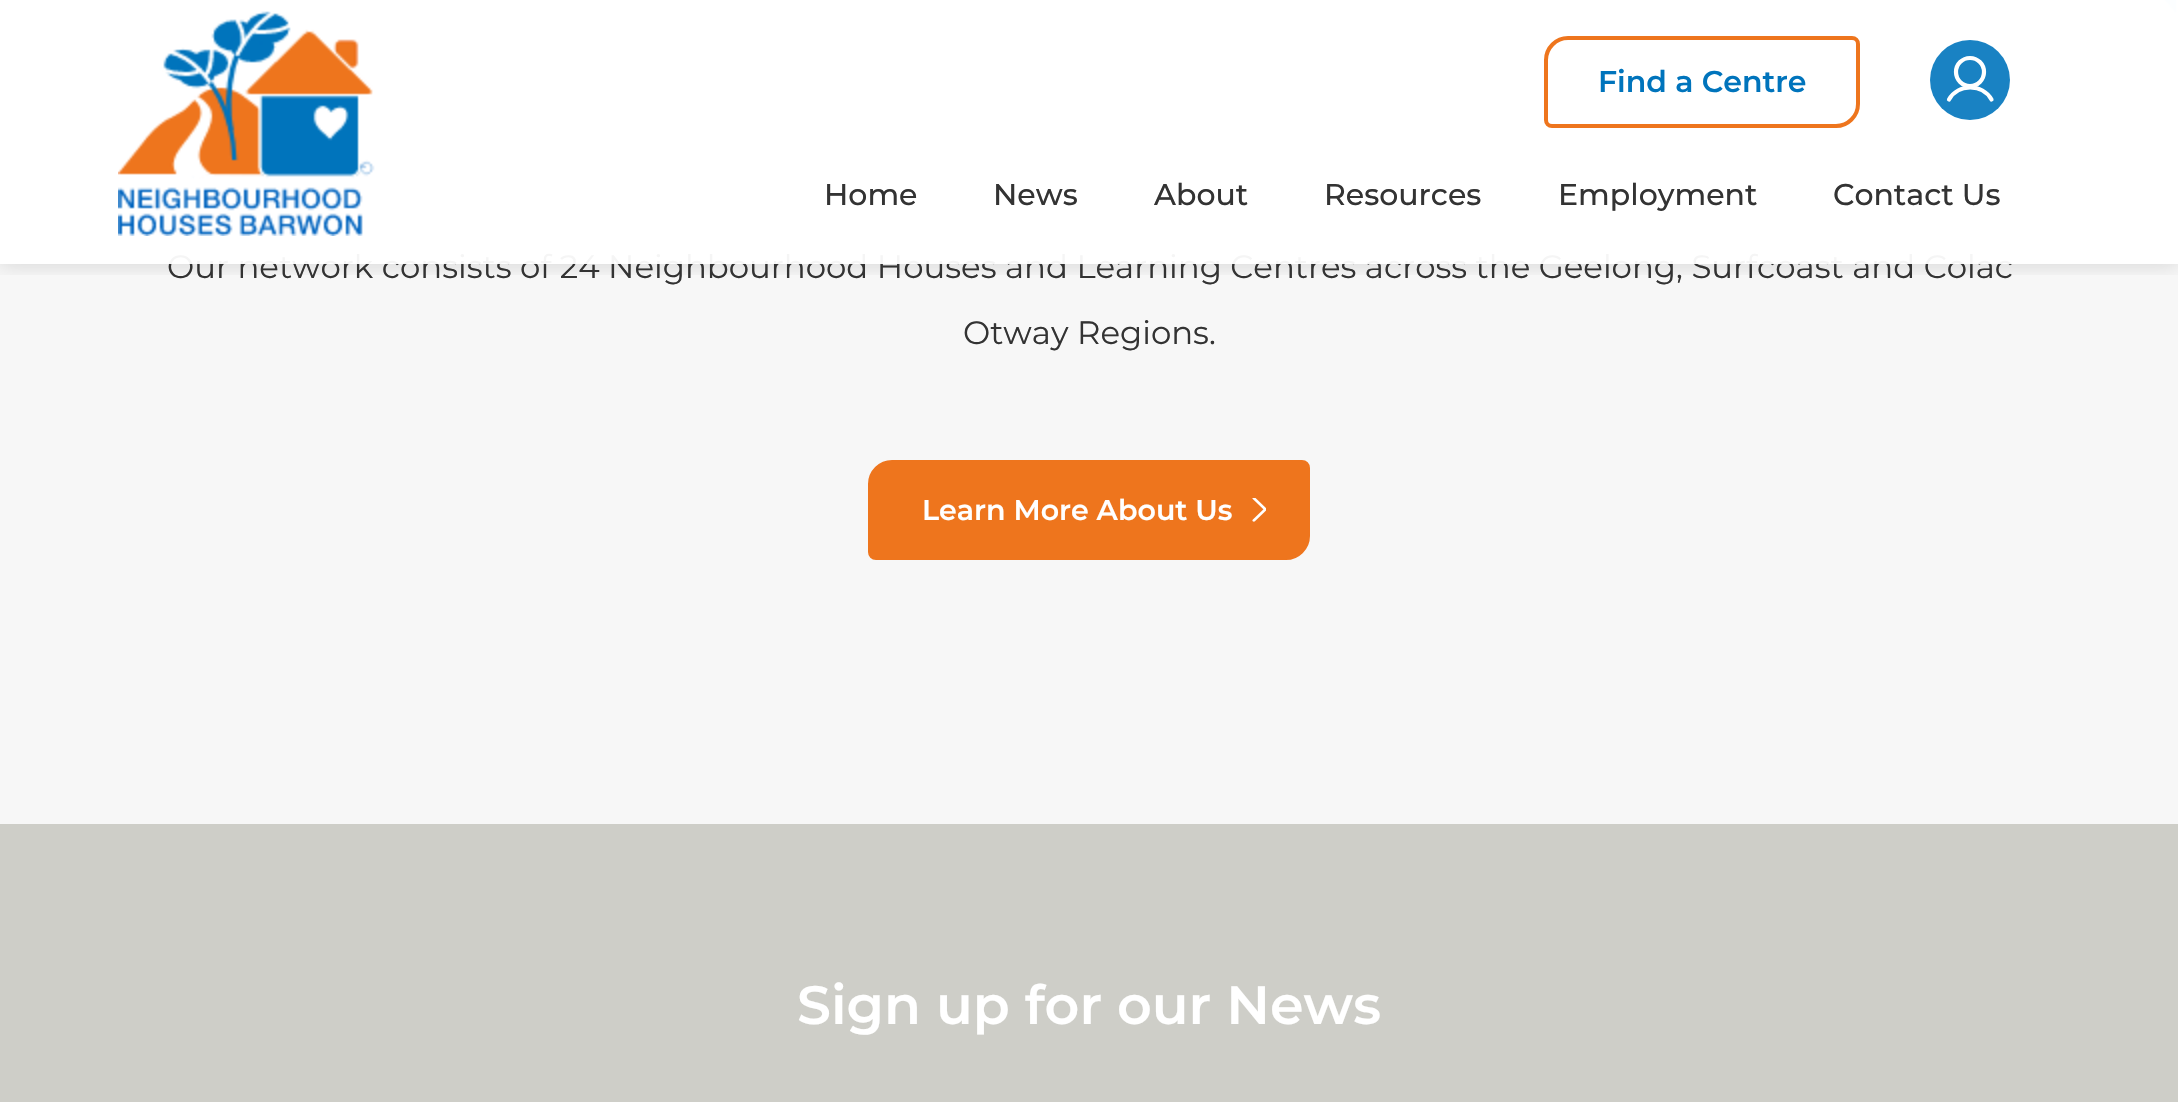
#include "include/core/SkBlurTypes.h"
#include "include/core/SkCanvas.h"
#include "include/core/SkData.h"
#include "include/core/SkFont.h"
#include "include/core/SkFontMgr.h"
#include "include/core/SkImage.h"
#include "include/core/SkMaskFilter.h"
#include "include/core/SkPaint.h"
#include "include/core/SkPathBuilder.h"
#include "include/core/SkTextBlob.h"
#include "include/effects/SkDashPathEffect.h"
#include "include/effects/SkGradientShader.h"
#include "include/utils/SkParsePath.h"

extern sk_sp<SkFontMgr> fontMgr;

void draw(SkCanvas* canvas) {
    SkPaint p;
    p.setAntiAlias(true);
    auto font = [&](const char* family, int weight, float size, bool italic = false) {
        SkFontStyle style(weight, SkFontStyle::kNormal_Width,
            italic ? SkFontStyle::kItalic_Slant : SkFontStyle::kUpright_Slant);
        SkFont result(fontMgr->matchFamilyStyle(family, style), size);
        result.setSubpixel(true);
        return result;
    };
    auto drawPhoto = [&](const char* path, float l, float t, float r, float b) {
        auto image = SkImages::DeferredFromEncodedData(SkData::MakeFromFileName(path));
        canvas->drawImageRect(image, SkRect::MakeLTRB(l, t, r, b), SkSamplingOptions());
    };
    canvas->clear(0xFFF7F7F7);
    drawPhoto("media/2.png", 2163, 0, 2178, 13);
    canvas->save();
    canvas->clipRect(SkRect::MakeLTRB(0, 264, 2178, 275));
    p.setColor(0x26000000);
    p.setMaskFilter(SkMaskFilter::MakeBlur(kNormal_SkBlurStyle, 10));
    canvas->drawRect(SkRect::MakeLTRB(0, 0, 2178, 264), p);
    p.setMaskFilter(nullptr);
    canvas->restore();
    auto font1 = font("Montserrat", 400, 32.4f);
    p.setColor(0xFF333333);
    canvas->drawString("Our network consists of 24 Neighbourhood Houses and Learning Centres across the Geelong, Surfcoast and Colac", 167, 278, font1, p);
    p.setColor(0xF2FFFFFF);
    canvas->drawRect(SkRect::MakeLTRB(0, 0, 2178, 264), p);
    drawPhoto("media/1.png", 118, 11, 375, 236);
    p.setStyle(SkPaint::kStroke_Style);
    p.setStrokeWidth(4);
    p.setColor(0xFFEE751D);
    canvas->drawPath(SkPathBuilder().moveTo(1568, 38).lineTo(1852, 38).cubicTo(1855.5f, 38, 1858, 40.5f, 1858, 44).lineTo(1858, 104).cubicTo(1858, 116, 1848, 126, 1836, 126).lineTo(1552, 126).cubicTo(1548.5f, 126, 1546, 123.5f, 1546, 120).lineTo(1546, 60).cubicTo(1546, 48, 1556, 38, 1568, 38).close().detach(), p);
    auto font2 = font("Montserrat", 600, 30);
    p.setStyle(SkPaint::kFill_Style);
    p.setColor(0xFF0074BC);
    canvas->drawString("Find a Centre", 1598, 92, font2, p);
    p.setColor(0xE60074BC);
    canvas->drawCircle(1970, 80, 40, p);
    p.setStyle(SkPaint::kStroke_Style);
    p.setStrokeWidth(4.2f);
    p.setColor(0xFFFFFFFF);
    canvas->drawCircle(1970, 72, 14, p);
    p.setStrokeCap(SkPaint::kRound_Cap);
    p.setStrokeJoin(SkPaint::kRound_Join);
    canvas->drawPath(SkPathBuilder().moveTo(1949, 99.5f).cubicTo(1958, 83.5f, 1982.5f, 83.5f, 1991.5f, 99.5f).detach(), p);
    auto font3 = font("Montserrat", 500, 30);
    p.setStyle(SkPaint::kFill_Style);
    p.setColor(0xFF333333);
    {
        const struct { const char* s; float x, y; } items[] = {
            {"Home", 824, 205},
            {"News", 993, 205},
            {"About", 1154, 205},
            {"Resources", 1324, 205},
            {"Employment", 1558, 205},
            {"Contact Us", 1833, 205},
        };
        for (auto [s, x, y] : items) {
            canvas->drawString(s, x, y, font3, p);
        }
    }
    canvas->drawString("Otway Regions.", 963, 344, font1, p);
    p.setColor(0xFFEE751D);
    canvas->drawPath(SkPathBuilder().moveTo(892, 462).lineTo(1302, 462).cubicTo(1305.5f, 462, 1308, 464.5f, 1308, 468).lineTo(1308, 536).cubicTo(1308, 548, 1298, 558, 1286, 558).lineTo(876, 558).cubicTo(872.5f, 558, 870, 555.5f, 870, 552).lineTo(870, 484).cubicTo(870, 472, 880, 462, 892, 462).close().detach(), p);
    p.setStyle(SkPaint::kStroke_Style);
    p.setStrokeWidth(4);
    p.setStrokeCap(SkPaint::kButt_Cap);
    p.setStrokeJoin(SkPaint::kMiter_Join);
    canvas->drawPath(SkPathBuilder().moveTo(892, 462).lineTo(1302, 462).cubicTo(1305.5f, 462, 1308, 464.5f, 1308, 468).lineTo(1308, 536).cubicTo(1308, 548, 1298, 558, 1286, 558).lineTo(876, 558).cubicTo(872.5f, 558, 870, 555.5f, 870, 552).lineTo(870, 484).cubicTo(870, 472, 880, 462, 892, 462).close().detach(), p);
    auto font4 = font("Montserrat", 600, 28.5f);
    p.setStyle(SkPaint::kFill_Style);
    p.setColor(0xFFFFFFFF);
    canvas->drawString("Learn More About Us", 922, 520, font4, p);
    drawPhoto("media/3.png", 1252, 498, 1266, 522);
    p.setColor(0xFFCECEC8);
    canvas->drawRect(SkRect::MakeLTRB(0, 824, 2178, 1102), p);
    auto font5 = font("Montserrat", 600, 54);
    p.setColor(0xFFFFFFFF);
    canvas->drawString("Sign up for our News", 797, 1024, font5, p);
}
